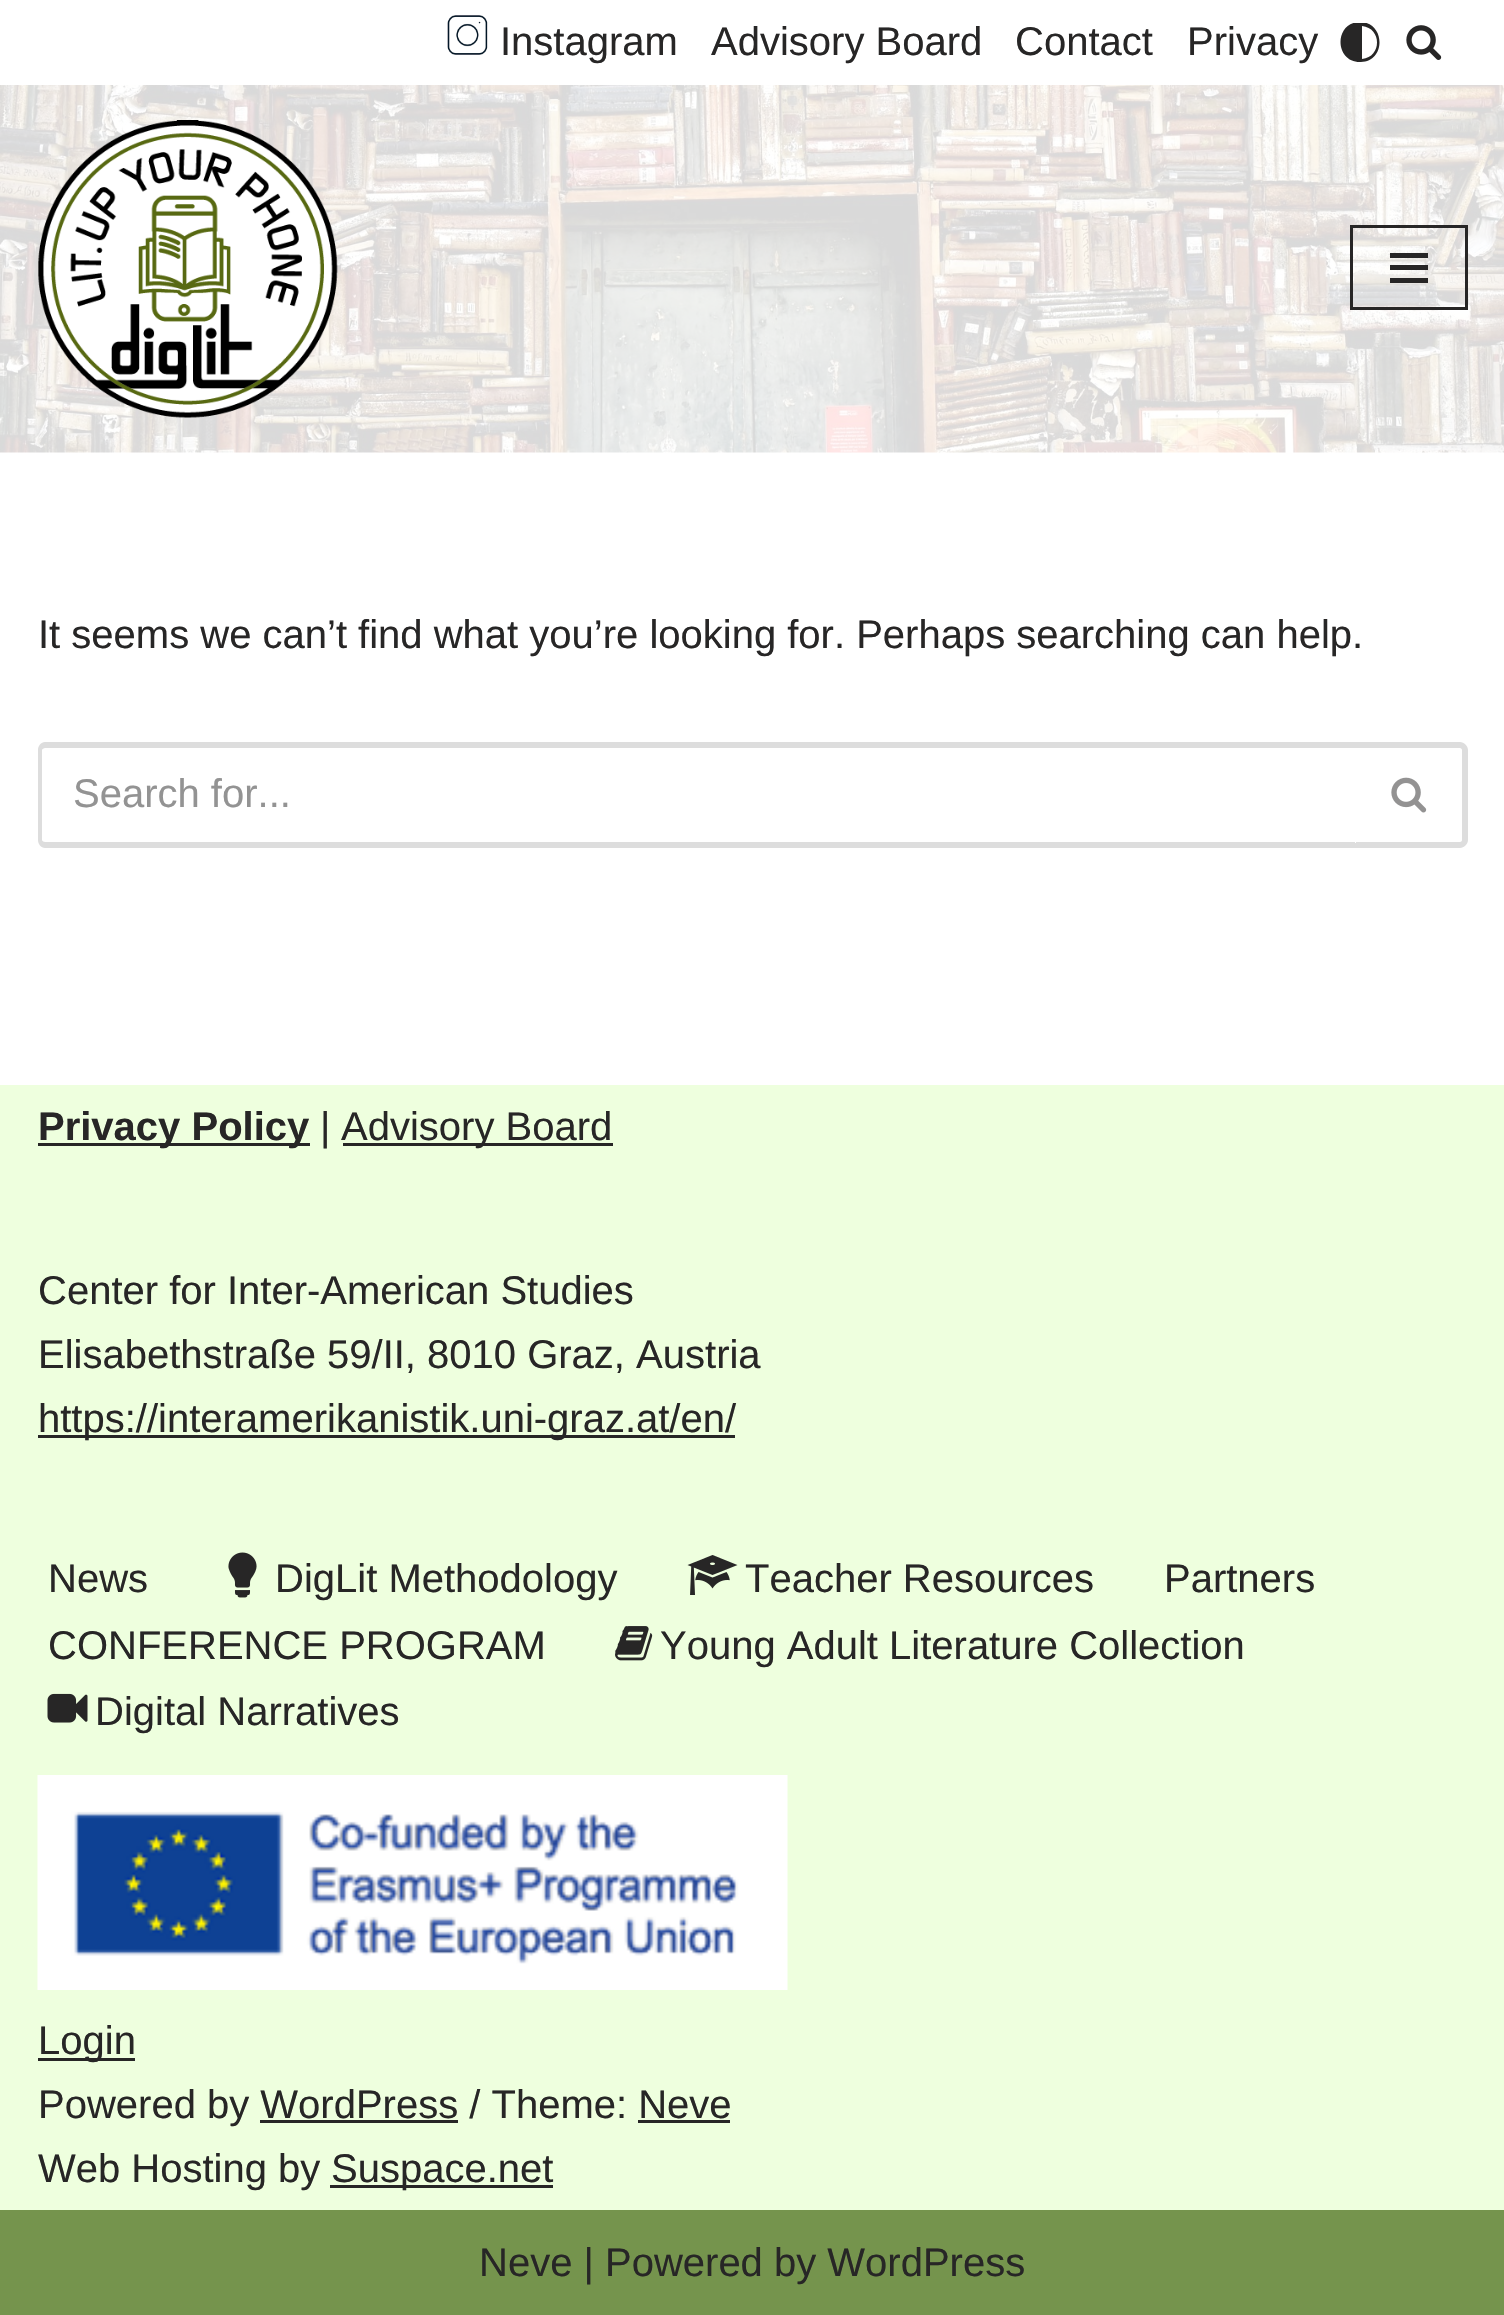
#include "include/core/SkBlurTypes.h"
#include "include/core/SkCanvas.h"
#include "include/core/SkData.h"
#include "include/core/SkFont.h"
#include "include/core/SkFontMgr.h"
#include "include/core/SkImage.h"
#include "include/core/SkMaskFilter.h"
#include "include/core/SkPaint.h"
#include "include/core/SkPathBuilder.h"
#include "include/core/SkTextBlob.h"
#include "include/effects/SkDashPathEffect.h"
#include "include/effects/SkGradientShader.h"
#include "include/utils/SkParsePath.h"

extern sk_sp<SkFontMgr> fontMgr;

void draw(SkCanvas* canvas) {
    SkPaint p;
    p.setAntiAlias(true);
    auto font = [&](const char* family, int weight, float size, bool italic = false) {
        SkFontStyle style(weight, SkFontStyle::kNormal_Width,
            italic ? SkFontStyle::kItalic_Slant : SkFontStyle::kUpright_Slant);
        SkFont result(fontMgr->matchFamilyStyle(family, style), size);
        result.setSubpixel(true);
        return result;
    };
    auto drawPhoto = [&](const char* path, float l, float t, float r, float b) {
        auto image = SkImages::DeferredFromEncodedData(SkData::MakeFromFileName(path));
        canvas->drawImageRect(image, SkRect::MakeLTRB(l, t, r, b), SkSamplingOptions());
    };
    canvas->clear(0xFFFFFFFF);
    drawPhoto("media/1.png", 447, 15, 488, 55);
    auto font1 = font("Liberation Sans", 400, 40);
    p.setColor(0xFF272626);
    {
        const struct { const char* s; float x, y; } items[] = {
            {"Instagram", 500, 55},
            {"Advisory Board", 711, 55},
            {"Contact", 1015, 55},
            {"Privacy", 1187, 55},
        };
        for (auto [s, x, y] : items) {
            canvas->drawString(s, x, y, font1, p);
        }
    }
    canvas->save();
    canvas->clipRect(SkRect::MakeLTRB(1340, 23, 1380, 63));
    canvas->drawPath(SkPathBuilder().moveTo(1360, 22).cubicTo(1334, 22, 1334, 62, 1360, 62).cubicTo(1386, 63, 1386, 22, 1360, 22).close().moveTo(1362, 59).lineTo(1362, 26).cubicTo(1382, 28, 1382, 57, 1362, 59).close().detach(), p);
    canvas->restore();
    drawPhoto("media/2.png", 1406, 25, 1442, 60);
    drawPhoto("media/3.png", 0, 85, 1504, 453);
    p.setColor(0xD9FFFFFF);
    canvas->drawRect(SkRect::MakeLTRB(0, 85, 1504, 453), p);
    drawPhoto("media/4.png", 38, 120, 338, 418);
    p.setStyle(SkPaint::kStroke_Style);
    p.setStrokeWidth(3);
    p.setColor(0xFF272626);
    canvas->drawRect(SkRect::MakeLTRB(1351.5f, 226.5f, 1466.5f, 308.5f), p);
    p.setStyle(SkPaint::kFill_Style);
    {
        const struct { float l, t, r, b; SkColor color; } items[] = {
            {1390, 253, 1428, 258, 0xFF272626},
            {1390, 265, 1428, 270, 0xFF272626},
            {1390, 278, 1428, 283, 0xFF272626},
        };
        for (auto [l, t, r, b, color] : items) {
            p.setColor(color);
            canvas->drawRect(SkRect::MakeLTRB(l, t, r, b), p);
        }
    }
    canvas->drawString("It seems we can’t find what you’re looking for. Perhaps searching can help.", 38, 648, font1, p);
    p.setColor(0xFFDDDDDD);
    canvas->drawPath(SkPathBuilder(SkPathFillType::kEvenOdd).moveTo(45, 742).lineTo(1355, 742).lineTo(1355, 848).lineTo(45, 848).cubicTo(41, 848, 38, 844, 38, 840).lineTo(38, 750).cubicTo(38, 746, 41, 742, 45, 742).close().moveTo(45, 748).lineTo(1355, 748).lineTo(1355, 842).lineTo(45, 842).cubicTo(44, 842, 42, 841, 42, 840).lineTo(42, 750).cubicTo(42, 749, 44, 748, 45, 748).close().detach(), p);
    p.setColor(0xFF939393);
    canvas->drawString("Search for...", 73, 807, font1, p);
    p.setColor(0xFFDDDDDD);
    canvas->drawPath(SkPathBuilder(SkPathFillType::kEvenOdd).moveTo(1355, 742).lineTo(1460, 742).cubicTo(1464, 742, 1468, 746, 1468, 750).lineTo(1468, 840).cubicTo(1468, 844, 1464, 848, 1460, 848).lineTo(1355, 848).close().moveTo(1355, 748).lineTo(1460, 748).cubicTo(1461, 748, 1462, 749, 1462, 750).lineTo(1462, 840).cubicTo(1462, 841, 1461, 842, 1460, 842).lineTo(1355, 842).close().detach(), p);
    drawPhoto("media/5.png", 1391, 777, 1427, 813);
    {
        const struct { float l, t, r, b; SkColor color; } items[] = {
            {1355, 842, 1356, 843, 0xFFFFFFFF},
            {0, 1085, 1504, 2210, 0xFFEEFFDE},
            {38, 1143, 310, 1146, 0xFF272626},
        };
        for (auto [l, t, r, b, color] : items) {
            p.setColor(color);
            canvas->drawRect(SkRect::MakeLTRB(l, t, r, b), p);
        }
    }
    auto font2 = font("Liberation Sans", 700, 40);
    canvas->drawString("Privacy Policy", 38, 1140, font2, p);
    canvas->drawString("|", 320, 1140, font1, p);
    canvas->drawRect(SkRect::MakeLTRB(343, 1143, 613, 1146), p);
    {
        const struct { const char* s; float x, y; } items[] = {
            {"Advisory Board", 341, 1140},
            {"Center for Inter-American Studies", 38, 1304},
            {"Elisabethstraße 59/II, 8010 Graz, Austria", 38, 1368},
        };
        for (auto [s, x, y] : items) {
            canvas->drawString(s, x, y, font1, p);
        }
    }
    canvas->drawRect(SkRect::MakeLTRB(38, 1435, 735, 1438), p);
    canvas->drawString("https://interamerikanistik.uni-graz.at/en/", 38, 1432, font1, p);
    canvas->drawString("News", 48, 1592, font1, p);
    drawPhoto("media/6.png", 228, 1552, 257, 1598);
    canvas->drawString("DigLit Methodology", 275, 1592, font1, p);
    drawPhoto("media/7.png", 687, 1555, 738, 1595);
    {
        const struct { const char* s; float x, y; } items[] = {
            {"Teacher Resources", 745, 1592},
            {"Partners", 1164, 1592},
            {"CONFERENCE PROGRAM", 48, 1659},
        };
        for (auto [s, x, y] : items) {
            canvas->drawString(s, x, y, font1, p);
        }
    }
    drawPhoto("media/8.png", 615, 1626, 653, 1661);
    canvas->drawString("Young Adult Literature Collection", 660, 1659, font1, p);
    drawPhoto("media/9.png", 47, 1693, 88, 1723);
    canvas->drawString("Digital Narratives", 95, 1725, font1, p);
    drawPhoto("media/10.png", 37, 1775, 788, 1990);
    canvas->drawRect(SkRect::MakeLTRB(38, 2058, 135, 2061), p);
    canvas->drawString("Login", 38, 2054, font1, p);
    canvas->drawString("Powered by WordPress / Theme: Neve", 38, 2118, font1, p);
    canvas->drawRect(SkRect::MakeLTRB(260, 2120, 458, 2123), p);
    canvas->drawRect(SkRect::MakeLTRB(638, 2120, 730, 2123), p);
    canvas->drawString("Web Hosting by", 38, 2182, font1, p);
    canvas->drawRect(SkRect::MakeLTRB(330, 2185, 553, 2188), p);
    canvas->drawString("Suspace.net", 331, 2182, font1, p);
    p.setColor(0xFF75944D);
    canvas->drawRect(SkRect::MakeLTRB(0, 2210, 1504, 2315), p);
    p.setColor(0xFF272626);
    canvas->drawString("Neve | Powered by WordPress", 479, 2276, font1, p);
}
